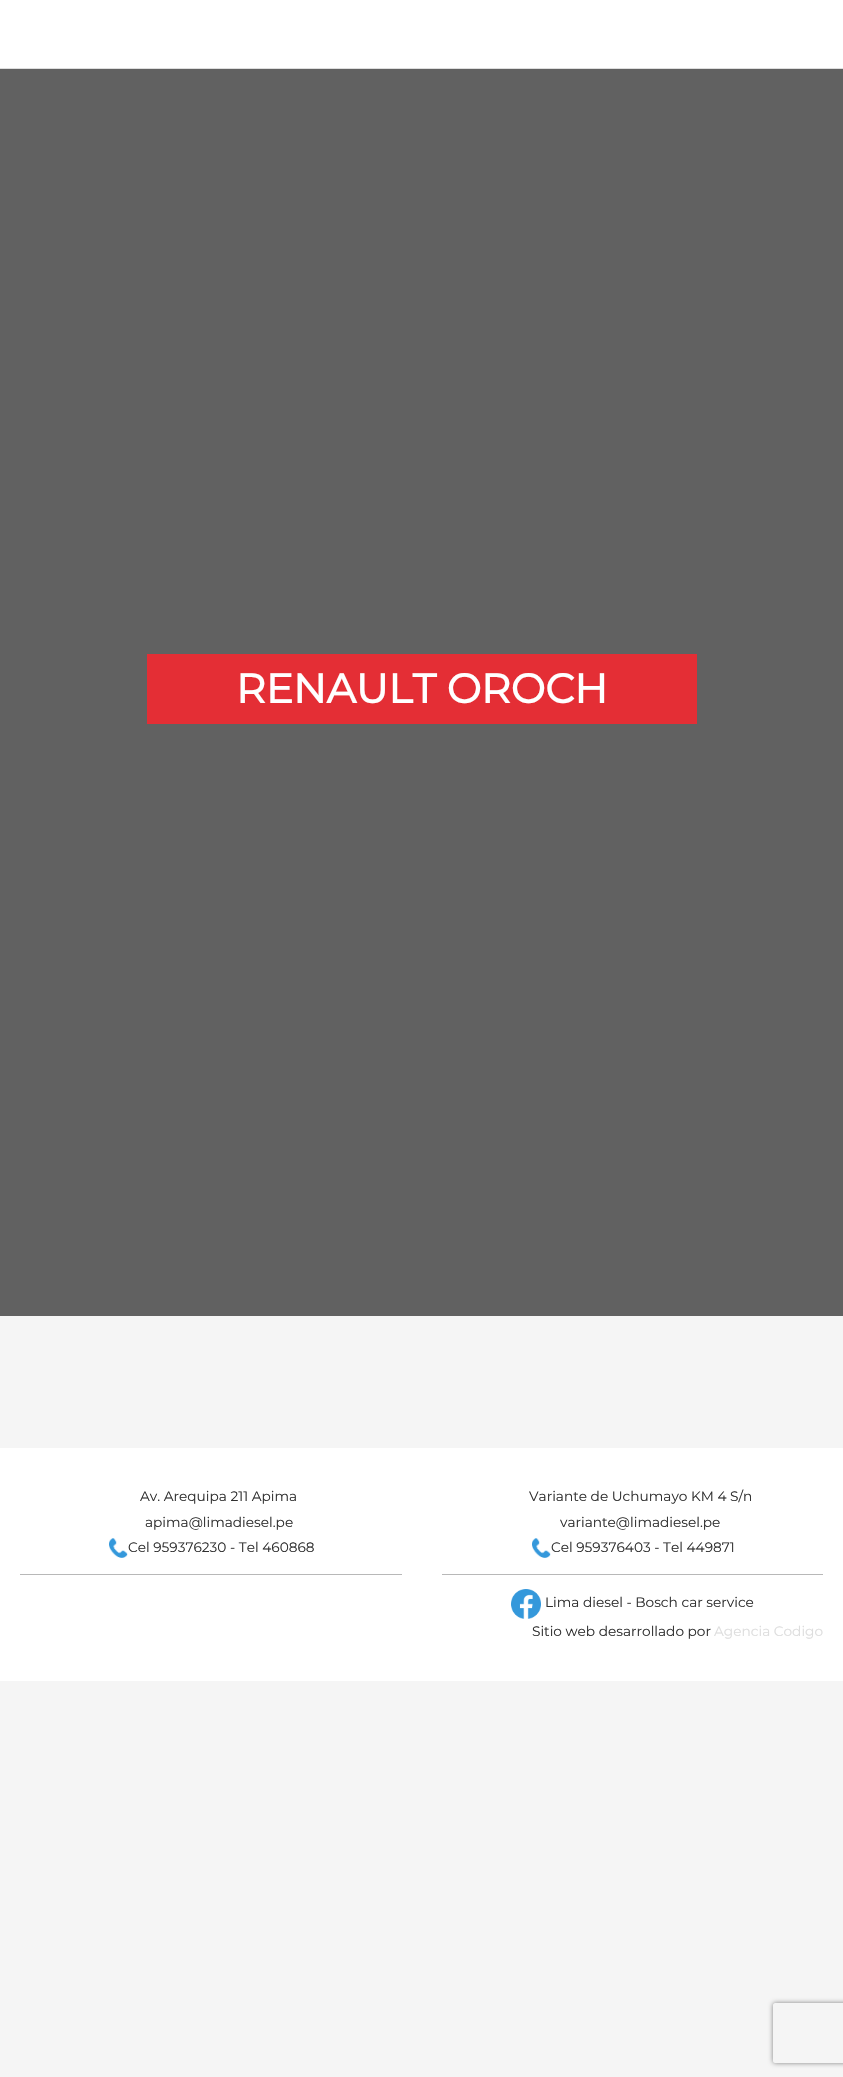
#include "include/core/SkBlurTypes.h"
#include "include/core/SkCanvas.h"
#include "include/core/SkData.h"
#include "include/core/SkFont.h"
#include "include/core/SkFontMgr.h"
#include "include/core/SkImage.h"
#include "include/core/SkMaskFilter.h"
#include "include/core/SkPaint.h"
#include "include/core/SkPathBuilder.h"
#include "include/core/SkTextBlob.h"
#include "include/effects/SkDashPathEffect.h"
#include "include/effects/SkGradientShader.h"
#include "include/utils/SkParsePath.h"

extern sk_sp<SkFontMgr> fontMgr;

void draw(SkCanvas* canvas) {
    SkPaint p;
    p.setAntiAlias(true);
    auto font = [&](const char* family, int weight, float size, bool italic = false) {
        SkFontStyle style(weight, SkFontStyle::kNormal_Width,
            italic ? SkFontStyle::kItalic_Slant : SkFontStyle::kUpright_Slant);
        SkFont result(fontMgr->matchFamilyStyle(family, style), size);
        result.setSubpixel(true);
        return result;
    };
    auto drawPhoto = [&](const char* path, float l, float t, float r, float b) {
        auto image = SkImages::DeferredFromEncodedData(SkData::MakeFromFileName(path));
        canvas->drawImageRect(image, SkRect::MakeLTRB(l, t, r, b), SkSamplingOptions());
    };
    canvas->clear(0xFFF5F5F5);
    {
        const struct { float l, t, r, b; SkColor color; } items[] = {
            {0, 0, 843, 68, 0xFFFFFFFF},
            {0, 68, 843, 69, 0xFFDDDDDD},
            {0, 69, 843, 1316, 0xFF616161},
            {147, 654, 697, 724, 0xFFE42E35},
        };
        for (auto [l, t, r, b, color] : items) {
            p.setColor(color);
            canvas->drawRect(SkRect::MakeLTRB(l, t, r, b), p);
        }
    }
    auto font1 = font("Montserrat", 700, 41);
    p.setColor(0xFFFFFFFF);
    canvas->drawString("RENAULT OROCH", 236, 703, font1, p);
    canvas->drawRect(SkRect::MakeLTRB(0, 1448, 843, 1681), p);
    auto font2 = font("Montserrat", 100, 13.7f);
    p.setColor(0xFF303030);
    canvas->drawString("Av. Arequipa 211 Apima", 140, 1501, font2, p);
    canvas->drawString("apima@limadiesel.pe", 145, 1527, font2, p);
    drawPhoto("media/1.png", 109, 1538, 128, 1558);
    canvas->drawString("Cel 959376230 - Tel 460868", 128, 1552, font2, p);
    p.setColor(0xFFB8B8B8);
    canvas->drawRect(SkRect::MakeLTRB(20, 1574, 402, 1575), p);
    p.setColor(0xFF303030);
    canvas->drawString("Variante de Uchumayo KM 4 S/n", 529, 1501, font2, p);
    canvas->drawString("variante@limadiesel.pe", 560, 1527, font2, p);
    drawPhoto("media/2.png", 532, 1538, 551, 1558);
    canvas->drawString("Cel 959376403 - Tel 449871", 551, 1552, font2, p);
    p.setColor(0xFFB8B8B8);
    canvas->drawRect(SkRect::MakeLTRB(442, 1574, 823, 1575), p);
    drawPhoto("media/3.png", 511, 1589, 541, 1619);
    p.setColor(0xFF303030);
    canvas->drawString("Lima diesel - Bosch car service", 545, 1607, font2, p);
    canvas->drawString("Sitio web desarrollado por", 532, 1636, font2, p);
    p.setColor(0xFFDDDDDD);
    canvas->drawString("Agencia Codigo", 714, 1636, font2, p);
    canvas->save();
    canvas->clipPath(SkPathBuilder(SkPathFillType::kEvenOdd).moveTo(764, 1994).lineTo(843, 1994).lineTo(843, 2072).lineTo(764, 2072).close().moveTo(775, 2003).lineTo(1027, 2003).cubicTo(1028, 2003, 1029, 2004, 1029, 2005).lineTo(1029, 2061).cubicTo(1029, 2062, 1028, 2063, 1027, 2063).lineTo(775, 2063).cubicTo(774, 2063, 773, 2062, 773, 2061).lineTo(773, 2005).cubicTo(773, 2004, 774, 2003, 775, 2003).close().detach(), true);
    p.setColor(0xFF808080);
    p.setMaskFilter(SkMaskFilter::MakeBlur(kNormal_SkBlurStyle, 2.5f));
    canvas->drawRoundRect(SkRect::MakeLTRB(773, 2003, 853, 2063), 2, 2, p);
    p.setMaskFilter(nullptr);
    canvas->restore();
}
